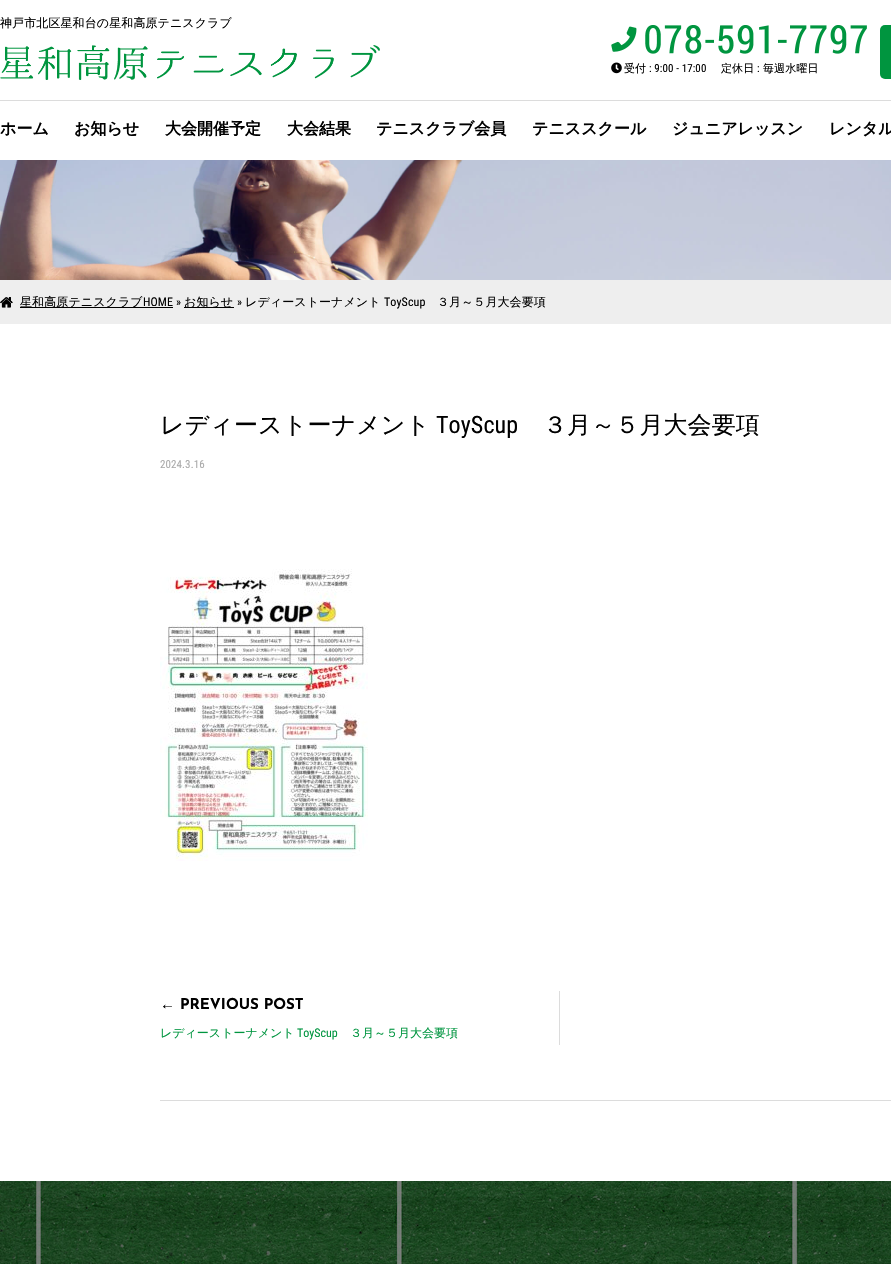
#include "include/core/SkBlurTypes.h"
#include "include/core/SkCanvas.h"
#include "include/core/SkData.h"
#include "include/core/SkFont.h"
#include "include/core/SkFontMgr.h"
#include "include/core/SkImage.h"
#include "include/core/SkMaskFilter.h"
#include "include/core/SkPaint.h"
#include "include/core/SkPathBuilder.h"
#include "include/core/SkTextBlob.h"
#include "include/effects/SkDashPathEffect.h"
#include "include/effects/SkGradientShader.h"
#include "include/utils/SkParsePath.h"

extern sk_sp<SkFontMgr> fontMgr;

void draw(SkCanvas* canvas) {
    SkPaint p;
    p.setAntiAlias(true);
    auto font = [&](const char* family, int weight, float size, bool italic = false) {
        SkFontStyle style(weight, SkFontStyle::kNormal_Width,
            italic ? SkFontStyle::kItalic_Slant : SkFontStyle::kUpright_Slant);
        SkFont result(fontMgr->matchFamilyStyle(family, style), size);
        result.setSubpixel(true);
        return result;
    };
    auto drawTracked = [&](const char* s, float x, float y, const SkFont& font, const SkPaint& ink, float letter, float word) {
        std::vector<SkGlyphID> glyphs(font.countText(s, strlen(s), SkTextEncoding::kUTF8));
        std::vector<float> xs(glyphs.size());
        font.textToGlyphs(s, strlen(s), SkTextEncoding::kUTF8, glyphs);
        font.getXPos(glyphs, xs, x);
        float extra = 0;
        for (size_t i = 0; i < glyphs.size(); i++) {
            xs[i] += extra;
            extra += letter + word * (glyphs[i] == font.unicharToGlyph(' '));
        }
        canvas->drawTextBlob(SkTextBlob::MakeFromPosHGlyphs(glyphs, xs, y, font), 0, 0, ink);
    };
    auto drawPhoto = [&](const char* path, float l, float t, float r, float b) {
        auto image = SkImages::DeferredFromEncodedData(SkData::MakeFromFileName(path));
        canvas->drawImageRect(image, SkRect::MakeLTRB(l, t, r, b), SkSamplingOptions());
    };
    canvas->clear(0xFFFFFFFF);
    auto font1 = font("WenQuanYi Zen Hei", 500, 12);
    p.setColor(0xFF000000);
    drawTracked("神戸市北区星和台の星和高原テニスクラブ", 0, 27, font1, p, 0.1f, 0);
    drawPhoto("media/1.png", 0, 45, 380, 80);
    drawPhoto("media/2.png", 611, 25, 867, 54);
    drawPhoto("media/3.png", 611, 62, 622, 74);
    auto font2 = font("WenQuanYi Zen Hei", 500, 11);
    drawTracked("受付", 624, 72, font2, p, 0.1f, 0);
    auto font3 = font("Roboto Condensed", 400, 11);
    drawTracked(": 9:00 - 17:00", 649, 72, font3, p, 0.1f, 0);
    drawTracked("定休日", 721, 72, font2, p, 0.1f, 0);
    drawTracked(":", 757, 72, font3, p, 0.1f, 0);
    drawTracked("毎週水曜日", 763, 72, font2, p, 0.1f, 0);
    p.setColor(0xFF00953F);
    canvas->drawRoundRect(SkRect::MakeLTRB(880, 25, 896, 79), 5, 5, p);
    p.setColor(0xFFDCDCDC);
    canvas->drawRect(SkRect::MakeLTRB(0, 100, 891, 101), p);
    auto font4 = font("WenQuanYi Zen Hei", 700, 16);
    p.setColor(0xFF000000);
    {
        const struct { const char* s; float x, y; } items[] = {
            {"ホーム", 0, 134},
            {"お知らせ", 74, 134},
            {"大会開催予定", 165, 134},
            {"大会結果", 287, 134},
            {"テニスクラブ会員", 376, 134},
            {"テニススクール", 532, 134},
            {"ジュニアレッスン", 672, 134},
            {"レンタル", 829, 134},
        };
        for (auto [s, x, y] : items) {
            canvas->drawString(s, x, y, font4, p);
        }
    }
    drawPhoto("media/4.png", 0, 160, 891, 280);
    p.setColor(0xFFEEEEEE);
    canvas->drawRect(SkRect::MakeLTRB(0, 280, 891, 324), p);
    drawPhoto("media/5.png", 0, 297, 13, 308);
    p.setColor(0xFF000000);
    canvas->drawRect(SkRect::MakeLTRB(20, 307, 173, 308), p);
    drawTracked("星和高原テニスクラブ", 20, 306, font1, p, 0.1f, 0);
    auto font5 = font("Roboto Condensed", 400, 12);
    drawTracked("HOME »", 143, 306, font5, p, 0.1f, 0);
    canvas->drawRect(SkRect::MakeLTRB(184, 307, 234, 308), p);
    drawTracked("お知らせ", 184, 306, font1, p, 0.1f, 0);
    drawTracked("»", 237, 306, font5, p, 0.1f, 0);
    drawTracked("レディーストーナメント", 245, 306, font1, p, 0.1f, 0);
    drawTracked("ToyScup", 384, 306, font5, p, 0.1f, 0);
    drawTracked("３月～５月大会要項", 437, 306, font1, p, 0.1f, 0);
    auto font6 = font("WenQuanYi Zen Hei", 500, 24);
    drawTracked("レディーストーナメント", 160, 433, font6, p, 0.1f, 0);
    auto font7 = font("Roboto Condensed", 400, 24);
    drawTracked("ToyScup", 436, 433, font7, p, 0.1f, 0);
    drawTracked("３月～５月大会要項", 543, 433, font6, p, 0.1f, 0);
    p.setColor(0xFFAAAAAA);
    drawTracked("2024.3.16", 160, 468, font3, p, 0.1f, 0);
    drawPhoto("media/6.png", 160, 569, 368, 861);
    p.setColor(0xFFDCDCDC);
    canvas->drawRect(SkRect::MakeLTRB(160, 1100, 891, 1101), p);
    canvas->drawRect(SkRect::MakeLTRB(559, 991, 560, 1045), p);
    auto font8 = font("Liberation Sans", 700, 15);
    p.setColor(0xFF000000);
    canvas->drawString("←", 160, 1009, font8, p);
    auto font9 = font("Josefin Sans", 700, 15);
    canvas->drawString("PREVIOUS POST", 180, 1009, font9, p);
    p.setColor(0xFF00953F);
    canvas->drawString("レディーストーナメント", 160, 1037, font1, p);
    canvas->drawString("ToyScup", 297, 1037, font5, p);
    canvas->drawString("３月～５月大会要項", 350, 1037, font1, p);
    drawPhoto("media/7.png", 0, 1181, 891, 1264);
}
